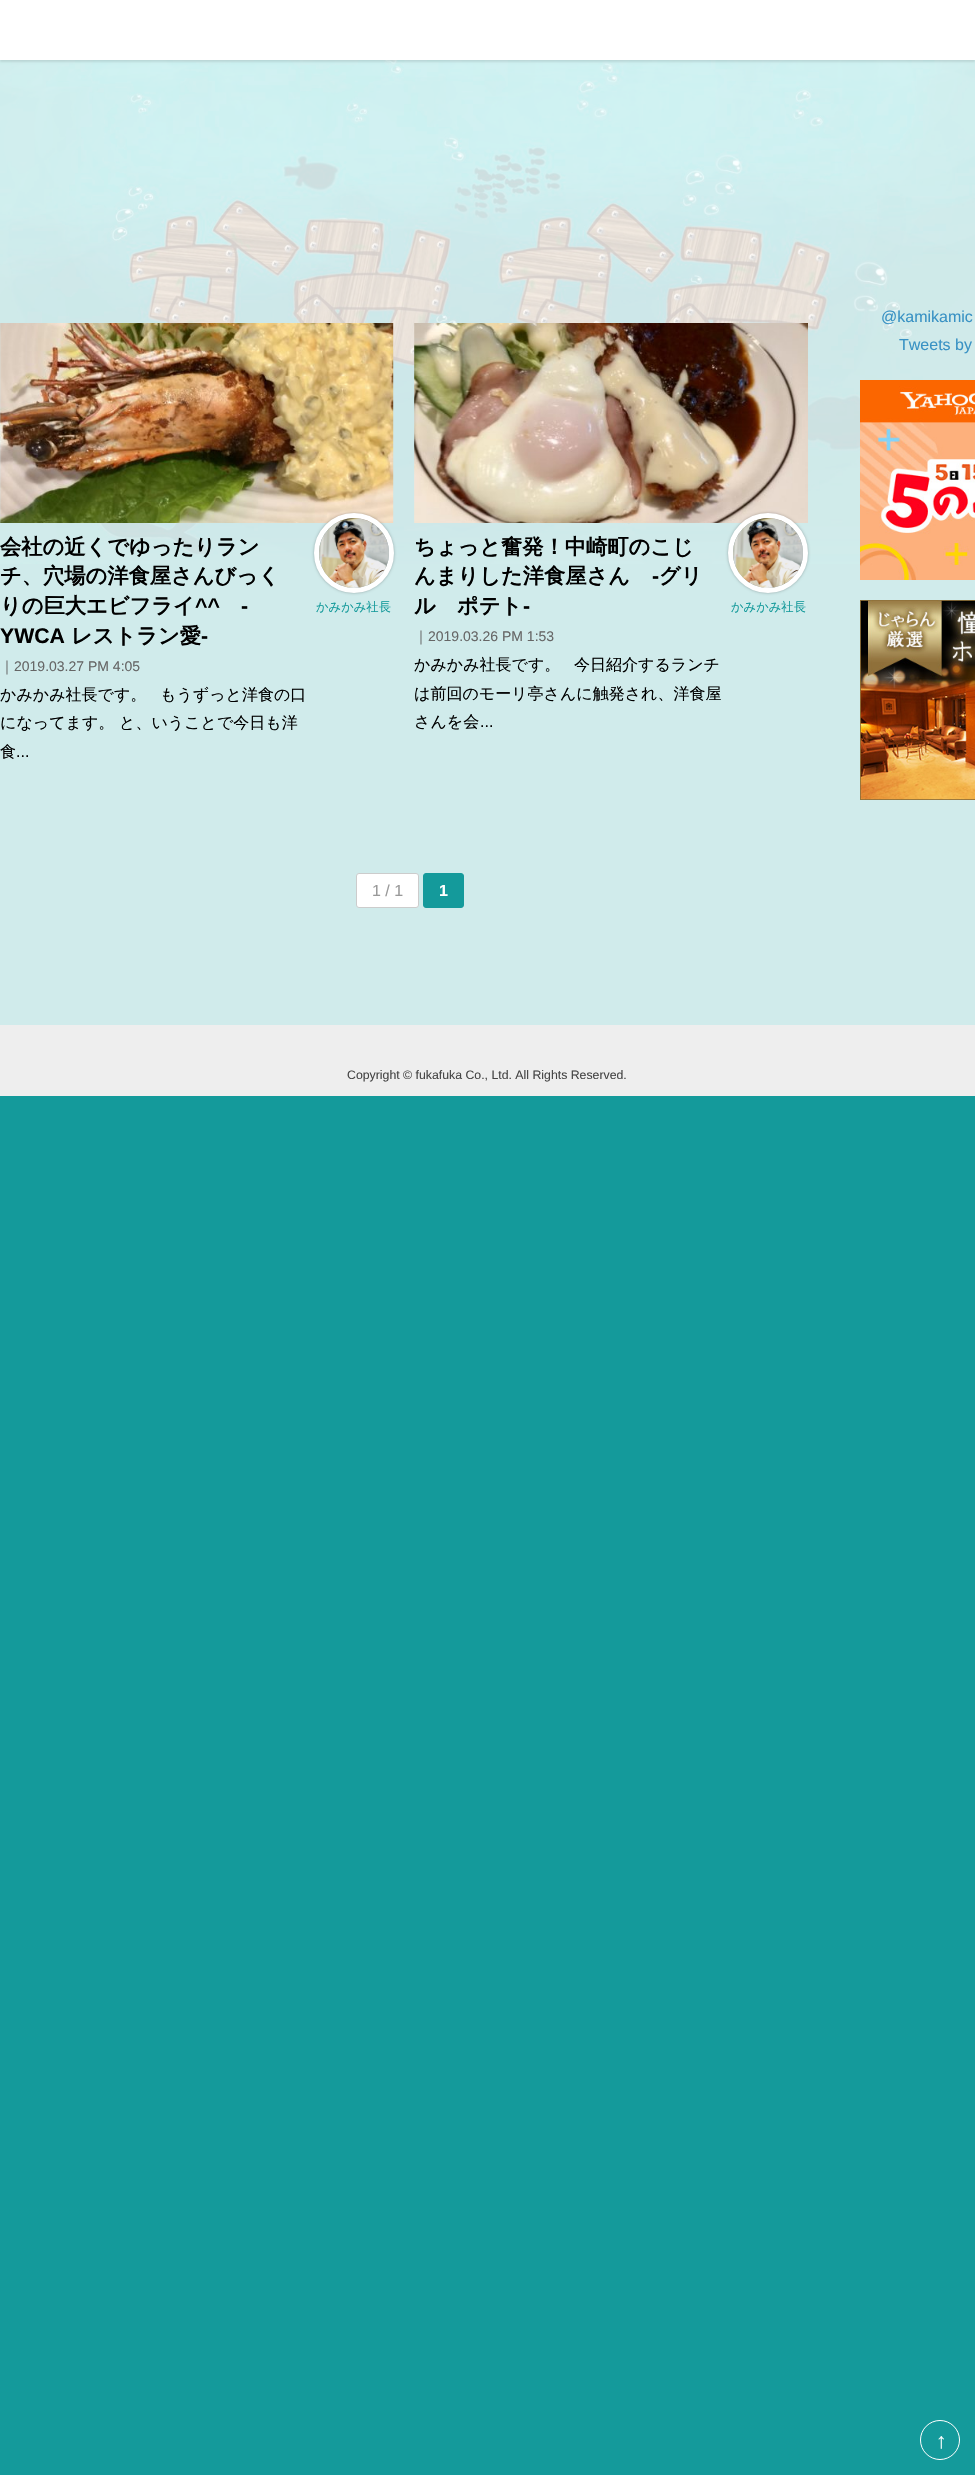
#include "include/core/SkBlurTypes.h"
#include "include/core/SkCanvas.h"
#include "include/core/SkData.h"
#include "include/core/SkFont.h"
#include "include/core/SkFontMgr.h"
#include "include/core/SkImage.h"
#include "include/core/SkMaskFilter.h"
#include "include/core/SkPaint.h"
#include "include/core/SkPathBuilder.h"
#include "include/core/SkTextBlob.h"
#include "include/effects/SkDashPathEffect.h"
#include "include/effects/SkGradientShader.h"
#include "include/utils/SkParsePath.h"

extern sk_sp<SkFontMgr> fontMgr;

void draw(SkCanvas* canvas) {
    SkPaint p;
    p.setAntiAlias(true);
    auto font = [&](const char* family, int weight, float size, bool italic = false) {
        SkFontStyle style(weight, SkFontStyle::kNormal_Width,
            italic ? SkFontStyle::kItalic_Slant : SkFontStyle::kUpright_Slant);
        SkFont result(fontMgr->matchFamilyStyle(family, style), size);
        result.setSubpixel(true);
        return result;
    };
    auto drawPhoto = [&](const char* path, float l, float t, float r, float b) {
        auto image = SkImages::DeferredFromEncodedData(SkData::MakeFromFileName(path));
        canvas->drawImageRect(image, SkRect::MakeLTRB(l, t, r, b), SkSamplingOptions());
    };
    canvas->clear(0xFF149A9B);
    drawPhoto("media/1.png", 0, 60, 975, 564);
    p.setColor(0xCCFFFFFF);
    canvas->drawRect(SkRect::MakeLTRB(0, 60, 975, 1025), p);
    p.setColor(0x1A000000);
    p.setMaskFilter(SkMaskFilter::MakeBlur(kNormal_SkBlurStyle, 1));
    canvas->drawRect(SkRect::MakeLTRB(0, 2, 975, 62), p);
    p.setMaskFilter(nullptr);
    p.setColor(0xFFFFFFFF);
    canvas->drawRect(SkRect::MakeLTRB(0, 0, 975, 60), p);
    p.setColor(0xFFEEEEEE);
    canvas->drawRect(SkRect::MakeLTRB(0, 1025, 975, 1096), p);
    auto font1 = font("Liberation Sans", 400, 16);
    p.setColor(0xFF3992C4);
    canvas->drawString("@kamikamic", 881, 322, font1, p);
    canvas->drawString("Tweets by", 899, 350, font1, p);
    drawPhoto("media/2.png", 860, 380, 975, 580);
    drawPhoto("media/3.png", 860, 600, 975, 800);
    drawPhoto("media/4.png", 0, 323, 394, 523);
    auto font2 = font("WenQuanYi Zen Hei", 700, 21.25f);
    p.setColor(0xFF000000);
    {
        const struct { const char* s; float x, y; } items[] = {
            {"会社の近くでゆったりラン", 0, 554},
            {"チ、穴場の洋食屋さんびっく", 0, 583},
            {"りの巨大エビフライ", 0, 613},
        };
        for (auto [s, x, y] : items) {
            canvas->drawString(s, x, y, font2, p);
        }
    }
    auto font3 = font("Liberation Sans", 700, 21.25f);
    {
        const struct { const char* s; float x, y; } items[] = {
            {"^^", 195, 613},
            {"-", 241, 613},
            {"YWCA", 0, 643},
        };
        for (auto [s, x, y] : items) {
            canvas->drawString(s, x, y, font3, p);
        }
    }
    canvas->drawString("レストラン愛", 71, 643, font2, p);
    canvas->drawString("-", 201, 643, font3, p);
    p.setColor(0x4D000000);
    p.setMaskFilter(SkMaskFilter::MakeBlur(kNormal_SkBlurStyle, 1.5f));
    canvas->drawRoundRect(SkRect::MakeLTRB(314, 513, 394, 593), 40, 40, p);
    p.setMaskFilter(nullptr);
    p.setStyle(SkPaint::kStroke_Style);
    p.setStrokeWidth(5);
    p.setColor(0xFFFFFFFF);
    canvas->drawCircle(354, 553, 37.5f, p);
    drawPhoto("media/5.png", 319, 518, 389, 588);
    auto font4 = font("WenQuanYi Zen Hei", 500, 12.3f);
    p.setStyle(SkPaint::kFill_Style);
    p.setColor(0xFF149A9B);
    canvas->drawString("かみかみ社長", 316, 611, font4, p);
    auto font5 = font("WenQuanYi Zen Hei", 500, 14);
    p.setColor(0xFF666666);
    canvas->drawString("｜", 0, 671, font5, p);
    auto font6 = font("Liberation Sans", 400, 14);
    canvas->drawString("2019.03.27 PM 4:05", 14, 671, font6, p);
    auto font7 = font("WenQuanYi Zen Hei", 500, 16);
    p.setColor(0xFF000000);
    {
        const struct { const char* s; float x, y; } items[] = {
            {"かみかみ社長です。", 0, 700},
            {"もうずっと洋食の口", 160, 700},
            {"になってます。", 0, 728},
            {"と、いうことで今日も洋", 119, 728},
            {"食", 0, 757},
        };
        for (auto [s, x, y] : items) {
            canvas->drawString(s, x, y, font7, p);
        }
    }
    canvas->drawString("...", 16, 757, font1, p);
    drawPhoto("media/6.png", 414, 323, 808, 523);
    canvas->drawString("ちょっと奮発！中崎町のこじ", 414, 554, font2, p);
    canvas->drawString("んまりした洋食屋さん", 414, 583, font2, p);
    canvas->drawString("-", 652, 583, font3, p);
    canvas->drawString("グリ", 659, 583, font2, p);
    canvas->drawString("ル　ポテト", 414, 613, font2, p);
    canvas->drawString("-", 523, 613, font3, p);
    p.setColor(0x4D000000);
    p.setMaskFilter(SkMaskFilter::MakeBlur(kNormal_SkBlurStyle, 1.5f));
    canvas->drawRoundRect(SkRect::MakeLTRB(728, 513, 808, 593), 40, 40, p);
    p.setMaskFilter(nullptr);
    p.setStyle(SkPaint::kStroke_Style);
    p.setColor(0xFFFFFFFF);
    canvas->drawCircle(768, 553, 37.5f, p);
    drawPhoto("media/7.png", 733, 518, 803, 588);
    p.setStyle(SkPaint::kFill_Style);
    p.setColor(0xFF149A9B);
    canvas->drawString("かみかみ社長", 731, 611, font4, p);
    p.setColor(0xFF666666);
    canvas->drawString("｜", 414, 641, font5, p);
    canvas->drawString("2019.03.26 PM 1:53", 428, 641, font6, p);
    p.setColor(0xFF000000);
    {
        const struct { const char* s; float x, y; } items[] = {
            {"かみかみ社長です。", 414, 670},
            {"今日紹介するランチ", 574, 670},
            {"は前回のモーリ亭さんに触発され、洋食屋", 414, 699},
            {"さんを会", 414, 727},
        };
        for (auto [s, x, y] : items) {
            canvas->drawString(s, x, y, font7, p);
        }
    }
    canvas->drawString("...", 480, 727, font1, p);
    p.setColor(0xFFFFFFFF);
    canvas->drawRoundRect(SkRect::MakeLTRB(356.5f, 873.5f, 418.5f, 907.5f), 2.5f, 2.5f, p);
    p.setStyle(SkPaint::kStroke_Style);
    p.setStrokeWidth(1);
    p.setColor(0xFFCCCCCC);
    canvas->drawRoundRect(SkRect::MakeLTRB(356.5f, 873.5f, 418.5f, 907.5f), 2.5f, 2.5f, p);
    p.setStyle(SkPaint::kFill_Style);
    p.setColor(0xFF999999);
    canvas->drawString("1 / 1", 372, 896, font1, p);
    p.setColor(0xFF149A9B);
    canvas->drawRoundRect(SkRect::MakeLTRB(423.5f, 873.5f, 463.5f, 907.5f), 2.5f, 2.5f, p);
    p.setStyle(SkPaint::kStroke_Style);
    canvas->drawRoundRect(SkRect::MakeLTRB(423.5f, 873.5f, 463.5f, 907.5f), 2.5f, 2.5f, p);
    auto font8 = font("Liberation Sans", 700, 16);
    p.setStyle(SkPaint::kFill_Style);
    p.setColor(0xFFFFFFFF);
    canvas->drawString("1", 439, 896, font8, p);
    auto font9 = font("Liberation Sans", 400, 12.3f);
    p.setColor(0xFF444444);
    canvas->drawString("Copyright © fukafuka Co., Ltd. All Rights Reserved.", 347, 1079, font9, p);
    p.setStyle(SkPaint::kStroke_Style);
    p.setColor(0xFFFFFFFF);
    canvas->drawCircle(940, 2440, 19.5f, p);
    p.setStyle(SkPaint::kFill_Style);
    canvas->drawString("↑", 936, 2448, font3, p);
}
